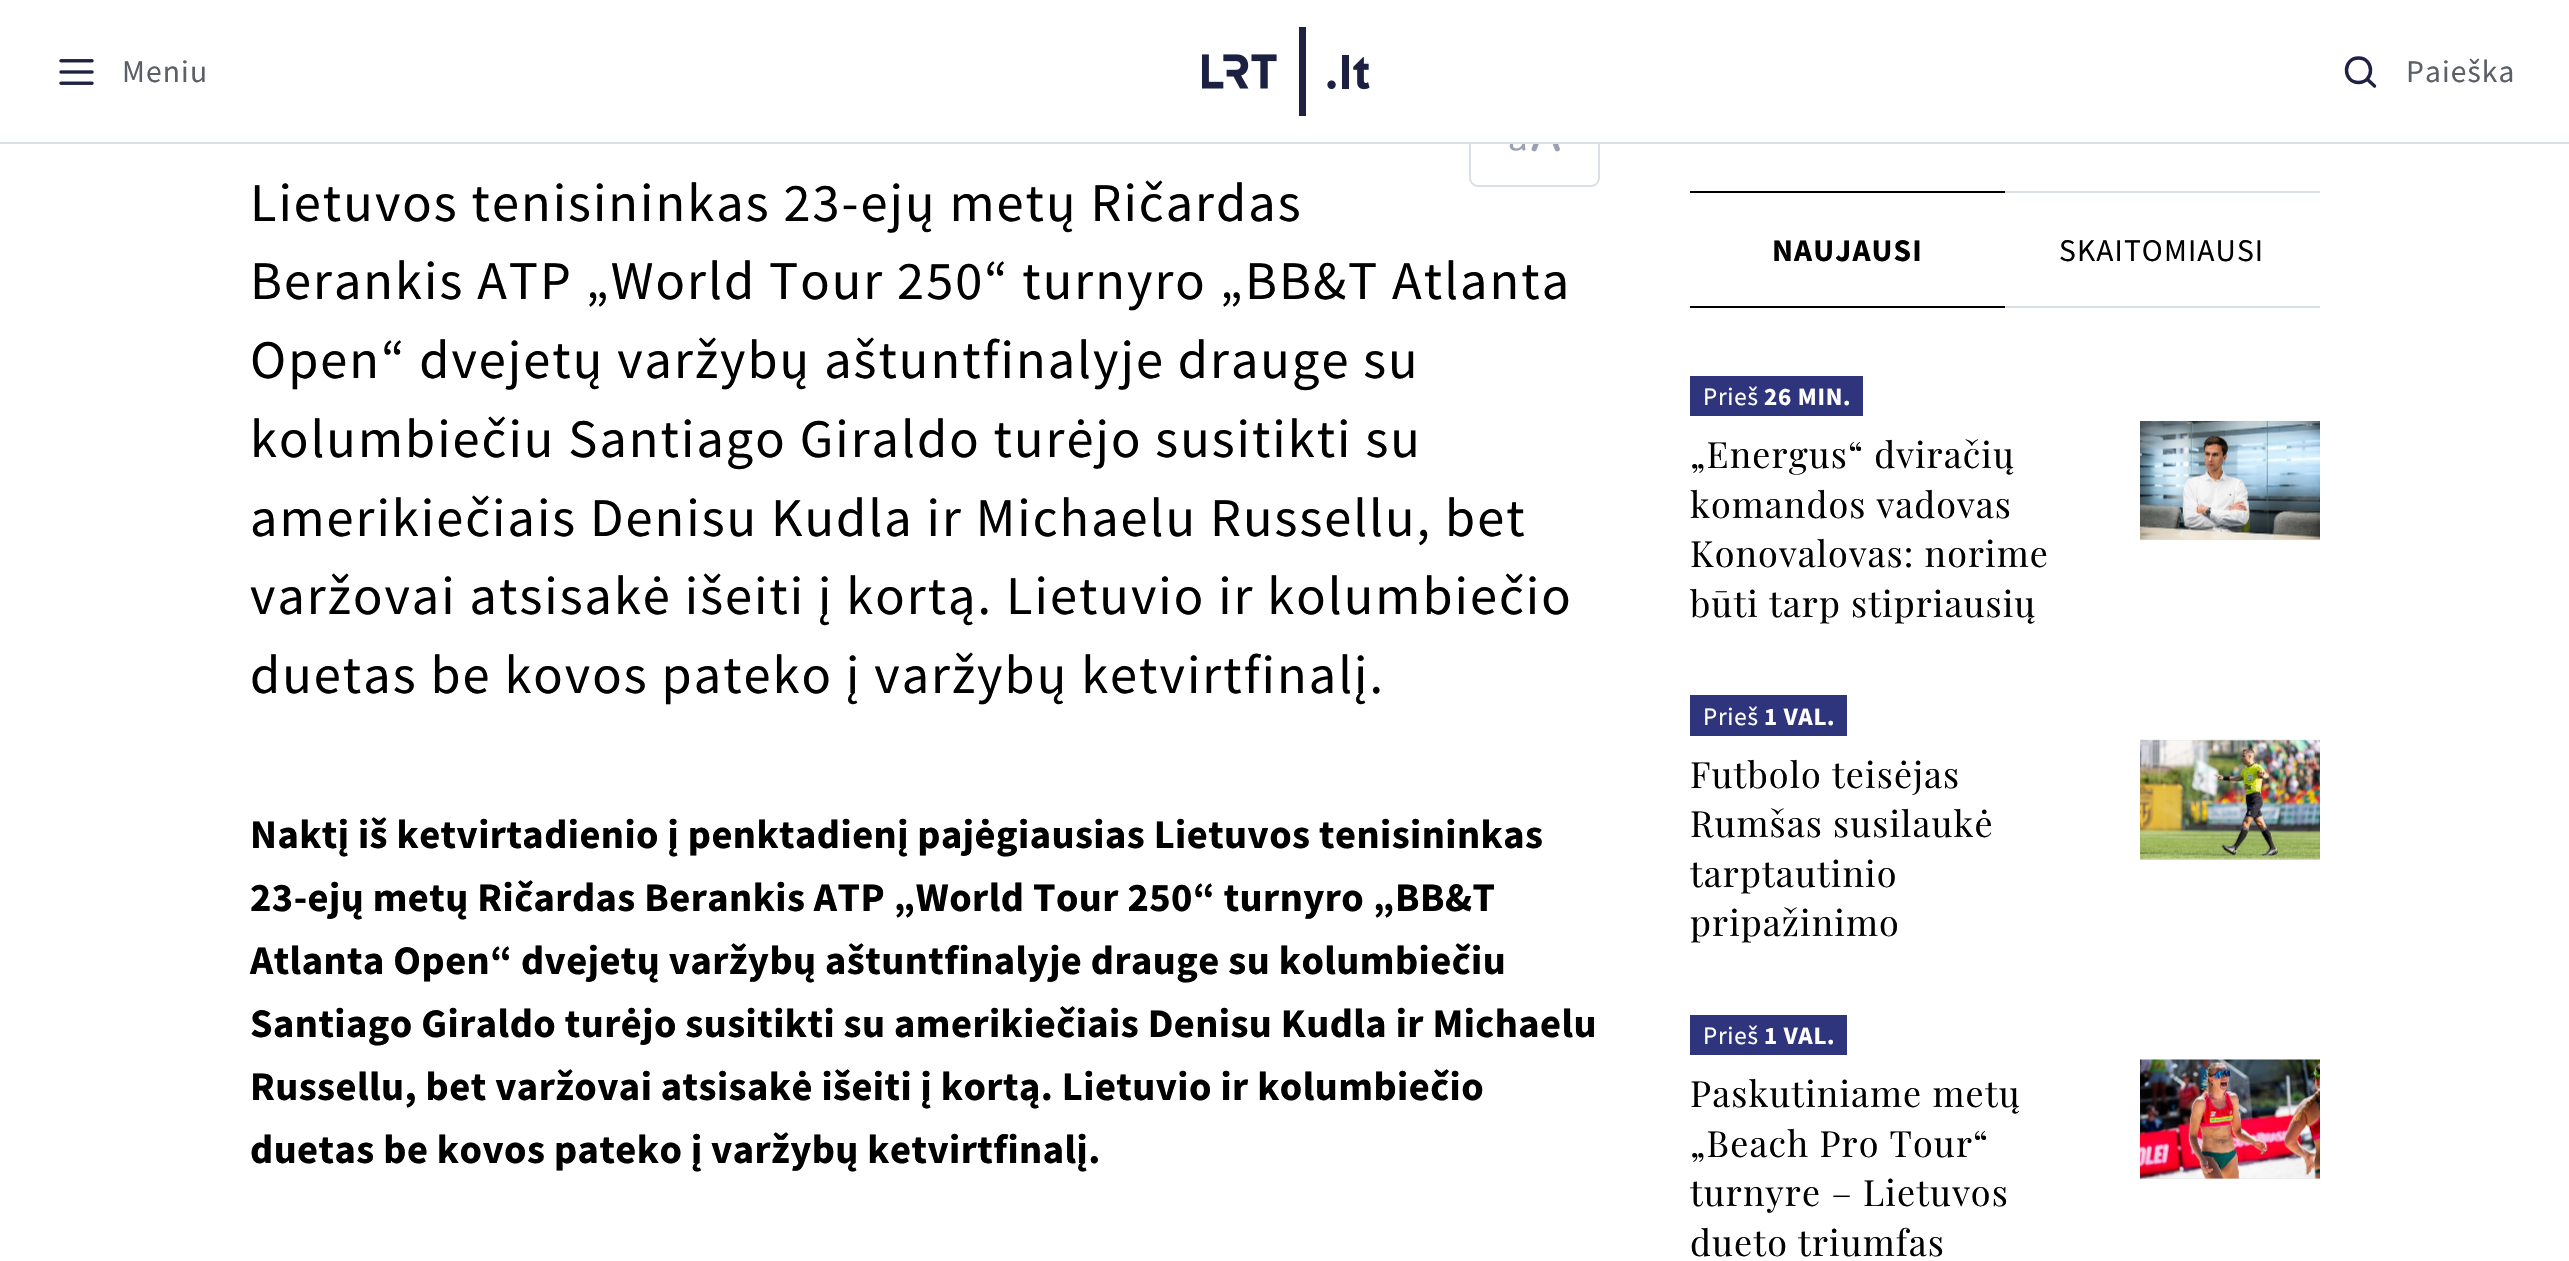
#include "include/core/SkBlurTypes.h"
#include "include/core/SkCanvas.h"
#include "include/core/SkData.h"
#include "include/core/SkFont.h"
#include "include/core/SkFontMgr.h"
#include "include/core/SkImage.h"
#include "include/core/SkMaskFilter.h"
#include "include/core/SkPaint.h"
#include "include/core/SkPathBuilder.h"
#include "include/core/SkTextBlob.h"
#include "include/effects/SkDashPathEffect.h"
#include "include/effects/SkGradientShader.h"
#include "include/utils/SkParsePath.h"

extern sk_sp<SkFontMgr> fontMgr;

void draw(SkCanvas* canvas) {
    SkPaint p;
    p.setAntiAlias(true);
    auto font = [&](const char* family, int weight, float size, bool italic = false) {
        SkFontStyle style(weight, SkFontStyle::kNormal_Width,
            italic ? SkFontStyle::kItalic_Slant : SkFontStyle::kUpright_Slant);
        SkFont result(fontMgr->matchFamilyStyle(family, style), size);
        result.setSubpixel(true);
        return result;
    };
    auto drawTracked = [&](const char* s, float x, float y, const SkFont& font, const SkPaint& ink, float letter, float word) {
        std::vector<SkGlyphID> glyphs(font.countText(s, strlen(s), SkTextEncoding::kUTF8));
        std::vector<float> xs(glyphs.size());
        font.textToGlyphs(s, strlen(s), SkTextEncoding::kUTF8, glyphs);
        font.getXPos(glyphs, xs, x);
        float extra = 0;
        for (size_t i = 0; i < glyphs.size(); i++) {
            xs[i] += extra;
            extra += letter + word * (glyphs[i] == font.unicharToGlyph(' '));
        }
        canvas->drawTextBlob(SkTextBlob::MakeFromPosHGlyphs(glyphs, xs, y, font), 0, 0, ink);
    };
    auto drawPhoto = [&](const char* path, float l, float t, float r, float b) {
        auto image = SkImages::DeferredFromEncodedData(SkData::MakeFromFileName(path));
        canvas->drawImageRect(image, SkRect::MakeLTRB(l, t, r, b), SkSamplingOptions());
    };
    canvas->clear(0xFFFFFFFF);
    p.setStyle(SkPaint::kStroke_Style);
    p.setStrokeWidth(2);
    p.setColor(0xFFDADEE5);
    canvas->drawRoundRect(SkRect::MakeLTRB(1470, 84, 1599, 186), 8, 8, p);
    p.setStyle(SkPaint::kFill_Style);
    p.setColor(0xFFFFFFFF);
    canvas->drawRect(SkRect::MakeLTRB(1469, 83, 1600, 142), p);
    p.setColor(0xFFDADEE5);
    canvas->drawRect(SkRect::MakeLTRB(0, 142, 2569, 144), p);
    drawPhoto("media/1.png", 59, 59, 94, 85);
    auto font1 = font("Source Sans Pro", 400, 31.5f);
    p.setColor(0xFF5B5F66);
    drawTracked("Meniu", 122, 82, font1, p, 1.1f, 0);
    drawPhoto("media/2.png", 1202, 27, 1370, 116);
    p.setStyle(SkPaint::kStroke_Style);
    p.setStrokeWidth(3.4f);
    p.setStrokeCap(SkPaint::kRound_Cap);
    p.setStrokeJoin(SkPaint::kRound_Join);
    p.setColor(0xFF1D2142);
    canvas->drawPath(SkPathBuilder().moveTo(2358.5f, 82.5f).cubicTo(2374.5f, 82.5f, 2374.5f, 58, 2358.5f, 58).cubicTo(2342.5f, 58, 2342.5f, 82.5f, 2358.5f, 82.5f).close().moveTo(2367, 79).lineTo(2374.5f, 86).detach(), p);
    p.setStyle(SkPaint::kFill_Style);
    p.setColor(0xFF5B5F66);
    drawTracked("Paieška", 2406, 82, font1, p, 1.1f, 0);
    drawPhoto("media/3.png", 1509, 144, 1560, 152);
    auto font2 = font("Source Sans Pro", 400, 54.4f);
    p.setColor(0xFF000000);
    {
        const struct { const char* s; float x, y; } items[] = {
            {"Lietuvos tenisininkas 23-ejų metų Ričardas", 250, 221},
            {"Berankis ATP „World Tour 250“ turnyro „BB&T Atlanta", 250, 299},
            {"Open“ dvejetų varžybų aštuntfinalyje drauge su", 250, 378},
            {"kolumbiečiu Santiago Giraldo turėjo susitikti su", 250, 457},
            {"amerikiečiais Denisu Kudla ir Michaelu Russellu, bet", 250, 536},
            {"varžovai atsisakė išeiti į kortą. Lietuvio ir kolumbiečio", 250, 614},
            {"duetas be kovos pateko į varžybų ketvirtfinalį.", 250, 693},
        };
        for (auto [s, x, y] : items) {
            drawTracked(s, x, y, font2, p, 2.02f, 0);
        }
    }
    auto font3 = font("Source Sans Pro", 700, 40.5f);
    {
        const struct { const char* s; float x, y; } items[] = {
            {"Naktį iš ketvirtadienio į penktadienį pajėgiausias Lietuvos tenisininkas", 250, 848},
            {"23-ejų metų Ričardas Berankis ATP „World Tour 250“ turnyro „BB&T", 250, 911},
            {"Atlanta Open“ dvejetų varžybų aštuntfinalyje drauge su kolumbiečiu", 250, 974},
            {"Santiago Giraldo turėjo susitikti su amerikiečiais Denisu Kudla ir Michaelu", 250, 1037},
            {"Russellu, bet varžovai atsisakė išeiti į kortą. Lietuvio ir kolumbiečio", 250, 1100},
            {"duetas be kovos pateko į varžybų ketvirtfinalį.", 250, 1163},
        };
        for (auto [s, x, y] : items) {
            drawTracked(s, x, y, font3, p, 0.45f, 0);
        }
    }
    canvas->drawRect(SkRect::MakeLTRB(1690, 191, 2005, 193), p);
    canvas->drawRect(SkRect::MakeLTRB(1690, 306, 2005, 308), p);
    auto font4 = font("Source Sans Pro", 700, 31.5f);
    drawTracked("NAUJAUSI", 1772, 261, font4, p, 1.1f, 0);
    p.setColor(0xFFDADEE5);
    canvas->drawRect(SkRect::MakeLTRB(2005, 191, 2320, 193), p);
    canvas->drawRect(SkRect::MakeLTRB(2005, 306, 2320, 308), p);
    p.setColor(0xFF000000);
    drawTracked("SKAITOMIAUSI", 2059, 261, font1, p, 1.1f, 0);
    p.setColor(0xFF2F357D);
    canvas->drawRect(SkRect::MakeLTRB(1690, 376, 1863, 416), p);
    auto font5 = font("Source Sans Pro", 400, 25);
    p.setColor(0xFFFFFFFF);
    drawTracked("Prieš", 1703, 405, font5, p, 0.75f, 0);
    auto font6 = font("Source Sans Pro", 700, 25);
    drawTracked("26 MIN.", 1764, 405, font6, p, 0.75f, 0);
    auto font7 = font("Playfair Display", 400, 36);
    p.setColor(0xFF000000);
    {
        const struct { const char* s; float x, y; } items[] = {
            {"„Energus“ dviračių", 1690, 468},
            {"komandos vadovas", 1690, 518},
            {"Konovalovas: norime", 1690, 567},
            {"būti tarp stipriausių", 1690, 617},
        };
        for (auto [s, x, y] : items) {
            drawTracked(s, x, y, font7, p, 1.1f, 0);
        }
    }
    p.setColor(0xFFE0E3E9);
    canvas->drawRect(SkRect::MakeLTRB(2140, 539, 2320, 540), p);
    drawPhoto("media/4.png", 2140, 421, 2320, 541);
    p.setColor(0xFF2F357D);
    canvas->drawRect(SkRect::MakeLTRB(1690, 695, 1847, 736), p);
    p.setColor(0xFFFFFFFF);
    drawTracked("Prieš", 1703, 725, font5, p, 0.75f, 0);
    drawTracked("1 VAL.", 1764, 725, font6, p, 0.75f, 0);
    p.setColor(0xFF000000);
    {
        const struct { const char* s; float x, y; } items[] = {
            {"Futbolo teisėjas", 1690, 788},
            {"Rumšas susilaukė", 1690, 837},
            {"tarptautinio", 1690, 887},
            {"pripažinimo", 1690, 936},
        };
        for (auto [s, x, y] : items) {
            drawTracked(s, x, y, font7, p, 1.1f, 0);
        }
    }
    p.setColor(0xFFE0E3E9);
    canvas->drawRect(SkRect::MakeLTRB(2140, 740, 2320, 860), p);
    drawPhoto("media/5.png", 2140, 739, 2320, 860);
    p.setColor(0xFF2F357D);
    canvas->drawRect(SkRect::MakeLTRB(1690, 1015, 1847, 1055), p);
    p.setColor(0xFFFFFFFF);
    drawTracked("Prieš", 1703, 1044, font5, p, 0.75f, 0);
    drawTracked("1 VAL.", 1764, 1044, font6, p, 0.75f, 0);
    p.setColor(0xFF000000);
    {
        const struct { const char* s; float x, y; } items[] = {
            {"Paskutiniame metų", 1690, 1107},
            {"„Beach Pro Tour“", 1690, 1157},
            {"turnyre – Lietuvos", 1690, 1206},
            {"dueto triumfas", 1690, 1256},
        };
        for (auto [s, x, y] : items) {
            drawTracked(s, x, y, font7, p, 1.1f, 0);
        }
    }
    p.setColor(0xFFE0E3E9);
    canvas->drawRect(SkRect::MakeLTRB(2140, 1178, 2320, 1179), p);
    drawPhoto("media/6.png", 2140, 1059, 2320, 1180);
}
